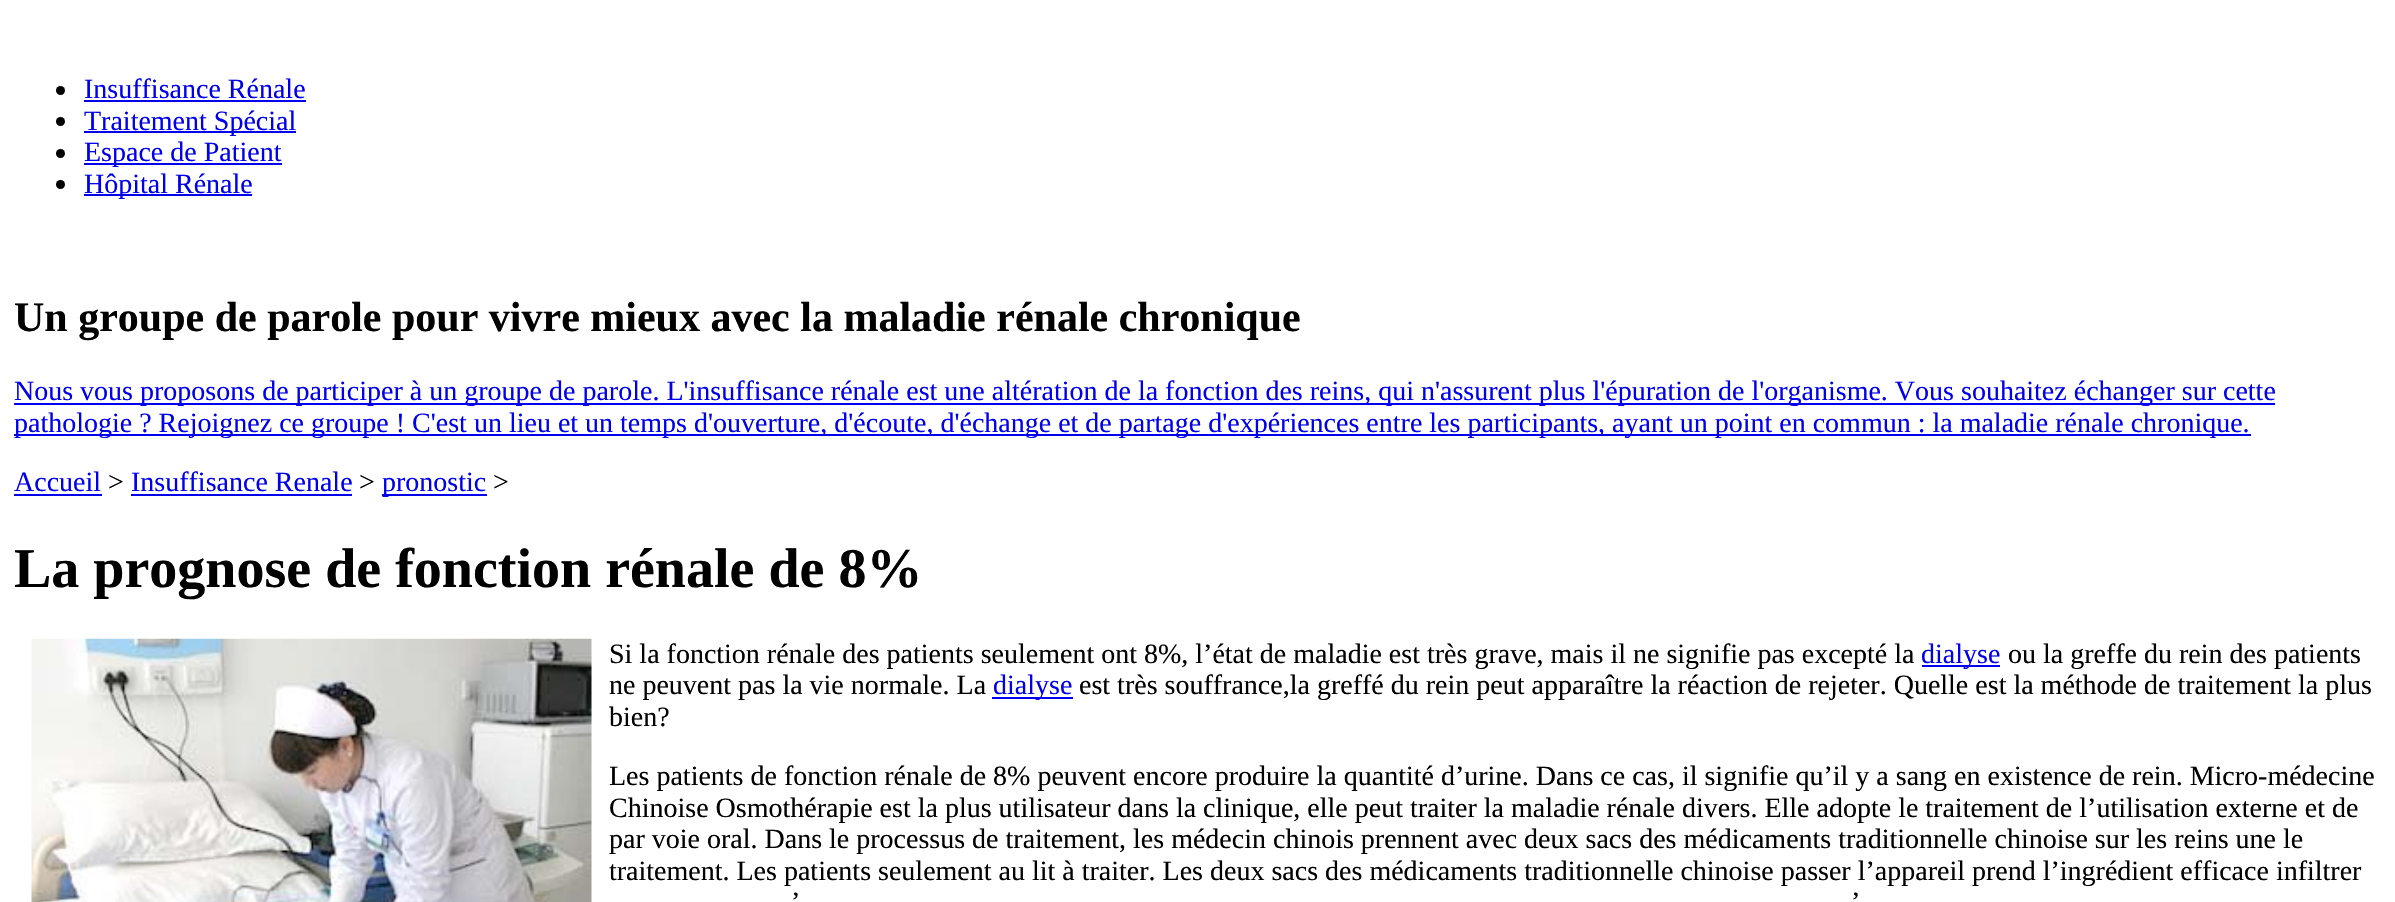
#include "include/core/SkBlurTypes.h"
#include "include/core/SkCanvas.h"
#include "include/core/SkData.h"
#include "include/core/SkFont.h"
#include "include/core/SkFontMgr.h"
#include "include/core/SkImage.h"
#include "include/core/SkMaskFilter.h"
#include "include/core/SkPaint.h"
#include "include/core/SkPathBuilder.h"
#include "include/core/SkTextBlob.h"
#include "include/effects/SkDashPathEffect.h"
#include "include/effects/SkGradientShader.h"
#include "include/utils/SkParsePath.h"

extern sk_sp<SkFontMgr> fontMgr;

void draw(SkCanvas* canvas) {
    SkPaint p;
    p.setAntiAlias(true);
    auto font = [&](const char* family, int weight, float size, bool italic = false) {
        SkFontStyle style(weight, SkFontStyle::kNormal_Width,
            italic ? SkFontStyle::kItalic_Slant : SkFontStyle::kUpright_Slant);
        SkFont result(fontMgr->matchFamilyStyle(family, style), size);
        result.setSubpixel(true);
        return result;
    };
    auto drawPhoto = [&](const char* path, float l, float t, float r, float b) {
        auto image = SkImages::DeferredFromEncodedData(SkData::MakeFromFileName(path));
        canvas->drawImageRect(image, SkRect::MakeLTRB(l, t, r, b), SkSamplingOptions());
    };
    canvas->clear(0xFFFFFFFF);
    p.setColor(0xFF000000);
    canvas->drawCircle(60.5f, 90.5f, 4.5f, p);
    auto font1 = font("Liberation Serif", 400, 28);
    p.setColor(0xFF0000EE);
    canvas->drawString("Insuffisance Rénale", 84, 98, font1, p);
    canvas->drawRect(SkRect::MakeLTRB(84, 100, 306, 102), p);
    p.setColor(0xFF000000);
    canvas->drawCircle(60.5f, 121.5f, 4.5f, p);
    p.setColor(0xFF0000EE);
    canvas->drawRect(SkRect::MakeLTRB(84, 131, 296, 133), p);
    canvas->drawString("Traitement Spécial", 84, 130, font1, p);
    p.setColor(0xFF000000);
    canvas->drawCircle(60.5f, 153.5f, 4.5f, p);
    p.setColor(0xFF0000EE);
    canvas->drawRect(SkRect::MakeLTRB(84, 163, 282, 165), p);
    canvas->drawString("Espace de Patient", 84, 161, font1, p);
    p.setColor(0xFF000000);
    canvas->drawCircle(60.5f, 184.5f, 4.5f, p);
    p.setColor(0xFF0000EE);
    canvas->drawRect(SkRect::MakeLTRB(84, 194, 252, 196), p);
    canvas->drawString("Hôpital Rénale", 84, 193, font1, p);
    auto font2 = font("Liberation Serif", 700, 42);
    p.setColor(0xFF000000);
    canvas->drawString("Un groupe de parole pour vivre mieux avec la maladie rénale chronique", 14, 331, font2, p);
    p.setColor(0xFF0000EE);
    canvas->drawRect(SkRect::MakeLTRB(14, 403, 2275, 405), p);
    canvas->drawString("Nous vous proposons de participer à un groupe de parole. L'insuffisance rénale est une altération de la fonction des reins, qui n'assurent plus l'épuration de l'organisme. Vous souhaitez échanger sur cette", 14, 400, font1, p);
    canvas->drawRect(SkRect::MakeLTRB(14, 434, 2251, 436), p);
    canvas->drawString("pathologie ? Rejoignez ce groupe ! C'est un lieu et un temps d'ouverture, d'écoute, d'échange et de partage d'expériences entre les participants, ayant un point en commun : la maladie rénale chronique.", 14, 432, font1, p);
    canvas->drawString("Accueil", 14, 491, font1, p);
    canvas->drawRect(SkRect::MakeLTRB(14, 494, 102, 496), p);
    p.setColor(0xFF000000);
    canvas->drawString(">", 108, 491, font1, p);
    p.setColor(0xFF0000EE);
    canvas->drawString("Insuffisance Renale", 131, 491, font1, p);
    canvas->drawRect(SkRect::MakeLTRB(131, 494, 352, 496), p);
    p.setColor(0xFF000000);
    canvas->drawString(">", 359, 491, font1, p);
    p.setColor(0xFF0000EE);
    canvas->drawRect(SkRect::MakeLTRB(382, 494, 487, 496), p);
    canvas->drawString("pronostic", 382, 491, font1, p);
    p.setColor(0xFF000000);
    canvas->drawString(">", 493, 491, font1, p);
    auto font3 = font("Liberation Serif", 700, 56);
    canvas->drawString("La prognose de fonction rénale de 8%", 14, 587, font3, p);
    drawPhoto("media/1.png", 31, 638, 592, 902);
    canvas->drawString("Si la fonction rénale des patients seulement ont 8%, l’état de maladie est très grave, mais il ne signifie pas excepté la", 609, 663, font1, p);
    p.setColor(0xFF0000EE);
    canvas->drawRect(SkRect::MakeLTRB(1922, 665, 2000, 667), p);
    canvas->drawString("dialyse", 1921, 663, font1, p);
    p.setColor(0xFF000000);
    canvas->drawString("ou la greffe du rein des patients", 2008, 663, font1, p);
    canvas->drawString("ne peuvent pas la vie normale. La", 609, 694, font1, p);
    p.setColor(0xFF0000EE);
    canvas->drawRect(SkRect::MakeLTRB(992, 697, 1073, 699), p);
    canvas->drawString("dialyse", 993, 694, font1, p);
    p.setColor(0xFF000000);
    {
        const struct { const char* s; float x, y; } items[] = {
            {"est très souffrance,la greffé du rein peut apparaître la réaction de rejeter. Quelle est la méthode de traitement la plus", 1079, 694},
            {"bien?", 609, 726},
            {"Les patients de fonction rénale de 8% peuvent encore produire la quantité d’urine. Dans ce cas, il signifie qu’il y a sang en existence de rein. Micro-médecine", 609, 785},
            {"Chinoise Osmothérapie est la plus utilisateur dans la clinique, elle peut traiter la maladie rénale divers. Elle adopte le traitement de l’utilisation externe et de", 609, 817},
            {"par voie oral. Dans le processus de traitement, les médecin chinois prennent avec deux sacs des médicaments traditionnelle chinoise sur les reins une le", 609, 848},
            {"traitement. Les patients seulement au lit à traiter. Les deux sacs des médicaments traditionnelle chinoise passer l’appareil prend l’ingrédient efficace infiltrer", 609, 880},
            {"’", 791, 911},
            {"’", 1851, 911},
        };
        for (auto [s, x, y] : items) {
            canvas->drawString(s, x, y, font1, p);
        }
    }
}
